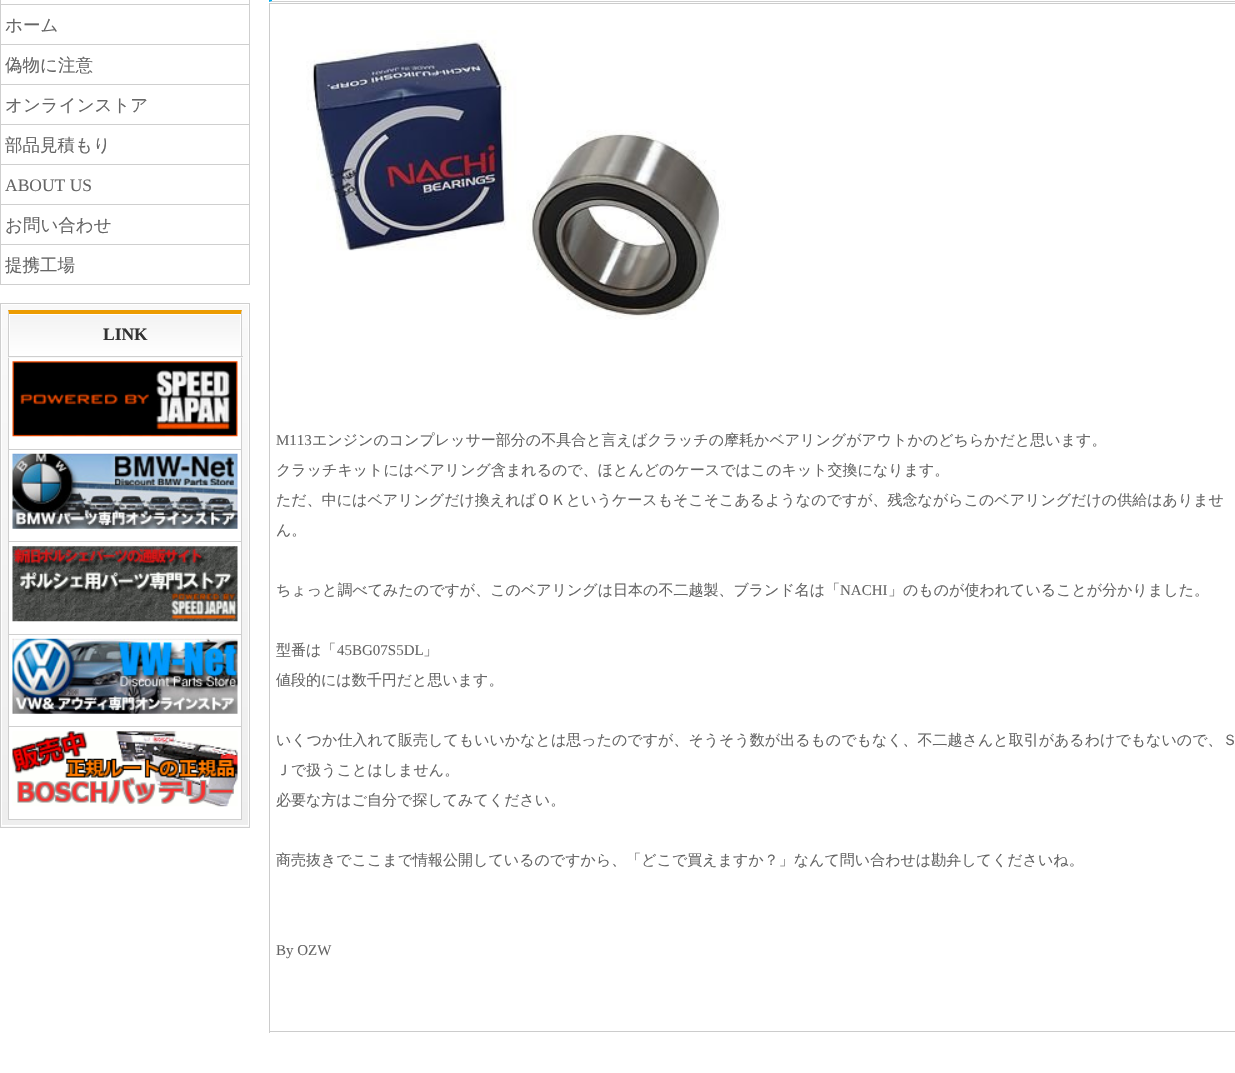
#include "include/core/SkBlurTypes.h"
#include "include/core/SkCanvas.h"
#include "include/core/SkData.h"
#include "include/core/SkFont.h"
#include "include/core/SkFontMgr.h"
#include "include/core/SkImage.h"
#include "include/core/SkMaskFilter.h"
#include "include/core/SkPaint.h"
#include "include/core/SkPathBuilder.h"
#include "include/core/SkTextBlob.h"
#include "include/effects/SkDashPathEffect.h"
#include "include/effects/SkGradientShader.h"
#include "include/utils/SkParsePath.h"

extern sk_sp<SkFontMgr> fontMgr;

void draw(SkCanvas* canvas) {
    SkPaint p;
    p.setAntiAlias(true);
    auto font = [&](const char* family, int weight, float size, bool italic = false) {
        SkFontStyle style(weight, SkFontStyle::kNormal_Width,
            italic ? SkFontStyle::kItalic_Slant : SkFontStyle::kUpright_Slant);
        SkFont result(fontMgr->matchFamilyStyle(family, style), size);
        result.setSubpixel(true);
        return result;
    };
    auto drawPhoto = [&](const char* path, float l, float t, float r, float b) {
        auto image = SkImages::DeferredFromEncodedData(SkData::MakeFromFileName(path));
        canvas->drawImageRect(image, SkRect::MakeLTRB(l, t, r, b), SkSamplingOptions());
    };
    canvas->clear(0xFFFFFFFF);
    p.setColor(0xFFCFCFCF);
    canvas->drawPath(SkPathBuilder().moveTo(250, -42).lineTo(250, 5).lineTo(249, 4).lineTo(249, -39).close().detach(), p);
    canvas->drawRect(SkRect::MakeLTRB(0, 4, 250, 5), p);
    canvas->drawPath(SkPathBuilder().moveTo(0, 5).lineTo(0, -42).lineTo(1, -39).lineTo(1, 4).close().detach(), p);
    {
        const struct { float l, t, r, b; SkColor color; } items[] = {
            {249, 5, 250, 285, 0xFFCFCFCF},
            {0, 5, 1, 285, 0xFFCFCFCF},
            {1, 44, 249, 45, 0xFFCFCFCF},
        };
        for (auto [l, t, r, b, color] : items) {
            p.setColor(color);
            canvas->drawRect(SkRect::MakeLTRB(l, t, r, b), p);
        }
    }
    auto font1 = font("WenQuanYi Zen Hei", 500, 17.5f);
    p.setColor(0xFF666666);
    canvas->drawString("ホーム", 5, 31, font1, p);
    p.setColor(0xFFCFCFCF);
    canvas->drawRect(SkRect::MakeLTRB(1, 84, 249, 85), p);
    p.setColor(0xFF666666);
    canvas->drawString("偽物に注意", 5, 71, font1, p);
    p.setColor(0xFFCFCFCF);
    canvas->drawRect(SkRect::MakeLTRB(1, 124, 249, 125), p);
    p.setColor(0xFF666666);
    canvas->drawString("オンラインストア", 5, 111, font1, p);
    p.setColor(0xFFCFCFCF);
    canvas->drawRect(SkRect::MakeLTRB(1, 164, 249, 165), p);
    p.setColor(0xFF666666);
    canvas->drawString("部品見積もり", 5, 151, font1, p);
    p.setColor(0xFFCFCFCF);
    canvas->drawRect(SkRect::MakeLTRB(1, 204, 249, 205), p);
    auto font2 = font("Liberation Serif", 400, 17.5f);
    p.setColor(0xFF666666);
    canvas->drawString("ABOUT US", 5, 191, font2, p);
    p.setColor(0xFFCFCFCF);
    canvas->drawRect(SkRect::MakeLTRB(1, 244, 249, 245), p);
    p.setColor(0xFF666666);
    canvas->drawString("お問い合わせ", 5, 231, font1, p);
    p.setColor(0xFFCFCFCF);
    canvas->drawRect(SkRect::MakeLTRB(1, 284, 249, 285), p);
    p.setColor(0xFF666666);
    canvas->drawString("提携工場", 5, 271, font1, p);
    {
        const SkColor colors[] = {0xFFF9F9F9, 0xFFEEEEEE};
        const float stops[] = {0, 1};
        const SkPoint ends[] = {{125, 304}, {125, 826}};
        p.setShader(SkGradientShader::MakeLinear(ends, colors, stops, 2, SkTileMode::kClamp));
        p.setAlpha(255);
    }
    canvas->drawRect(SkRect::MakeLTRB(2, 305, 248, 825), p);
    {
        const SkColor colors[] = {0xFFF9F9F9, 0xFFEEEEEE};
        const float stops[] = {0, 1};
        const SkPoint ends[] = {{125, 826}, {125, 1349}};
        p.setShader(SkGradientShader::MakeLinear(ends, colors, stops, 2, SkTileMode::kClamp));
        p.setAlpha(255);
    }
    canvas->drawRect(SkRect::MakeLTRB(0, 826, 250, 827), p);
    p.setStyle(SkPaint::kStroke_Style);
    p.setStrokeWidth(1);
    p.setShader(nullptr);
    p.setColor(0xFFCFCFCF);
    canvas->drawRect(SkRect::MakeLTRB(0.5f, 303.5f, 249.5f, 827.5f), p);
    p.setStyle(SkPaint::kFill_Style);
    {
        const SkColor colors[] = {0xFFF2F2F2, 0xFFFFFFFF};
        const float stops[] = {0, 1};
        const SkPoint ends[] = {{125, 314}, {125, 356}};
        p.setShader(SkGradientShader::MakeLinear(ends, colors, stops, 2, SkTileMode::kClamp));
        p.setAlpha(255);
    }
    canvas->drawRect(SkRect::MakeLTRB(10, 315, 240, 355), p);
    p.setStyle(SkPaint::kStroke_Style);
    p.setShader(nullptr);
    p.setColor(0xFFFFFFFF);
    canvas->drawRect(SkRect::MakeLTRB(9.5f, 314.5f, 240.5f, 355.5f), p);
    p.setStyle(SkPaint::kFill_Style);
    p.setColor(0xFFEC9B00);
    canvas->drawPath(SkPathBuilder().moveTo(8, 310).lineTo(242, 310).lineTo(241, 314).lineTo(9, 314).close().detach(), p);
    p.setColor(0xFFCFCFCF);
    canvas->drawPath(SkPathBuilder().moveTo(242, 310).lineTo(242, 358).lineTo(241, 356).lineTo(241, 314).close().detach(), p);
    canvas->drawRect(SkRect::MakeLTRB(8, 356, 243, 357), p);
    canvas->drawPath(SkPathBuilder().moveTo(8, 358).lineTo(8, 310).lineTo(9, 314).lineTo(9, 356).close().detach(), p);
    auto font3 = font("Liberation Serif", 700, 17.5f);
    p.setColor(0xFF333333);
    canvas->drawString("LINK", 103, 340, font3, p);
    {
        const struct { float l, t, r, b; SkColor color; } items[] = {
            {241, 358, 242, 820, 0xFFCFCFCF},
            {8, 358, 9, 820, 0xFFCFCFCF},
            {9, 358, 241, 449, 0xFFFFFFFF},
            {9, 449, 241, 450, 0xFFCFCFCF},
        };
        for (auto [l, t, r, b, color] : items) {
            p.setColor(color);
            canvas->drawRect(SkRect::MakeLTRB(l, t, r, b), p);
        }
    }
    drawPhoto("media/1.png", 12, 361, 238, 437);
    p.setColor(0xFFFFFFFF);
    canvas->drawRect(SkRect::MakeLTRB(9, 450, 241, 634), p);
    p.setColor(0xFFCFCFCF);
    canvas->drawRect(SkRect::MakeLTRB(9, 541, 241, 542), p);
    drawPhoto("media/2.png", 12, 453, 238, 529);
    canvas->drawRect(SkRect::MakeLTRB(9, 634, 241, 635), p);
    drawPhoto("media/3.png", 12, 546, 238, 622);
    p.setColor(0xFFFFFFFF);
    canvas->drawRect(SkRect::MakeLTRB(9, 635, 241, 819), p);
    p.setColor(0xFFCFCFCF);
    canvas->drawRect(SkRect::MakeLTRB(9, 726, 241, 727), p);
    drawPhoto("media/4.png", 12, 638, 238, 714);
    canvas->drawRect(SkRect::MakeLTRB(9, 819, 241, 820), p);
    drawPhoto("media/5.png", 12, 731, 238, 807);
    canvas->drawPath(SkPathBuilder().moveTo(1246, 2).lineTo(269, 2).lineTo(272, 1).lineTo(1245, 1).close().detach(), p);
    p.setColor(0xFF00ADEF);
    canvas->drawPath(SkPathBuilder().moveTo(269, 2).lineTo(269, -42).lineTo(272, -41).lineTo(272, 1).close().detach(), p);
    {
        const struct { float l, t, r, b; SkColor color; } items[] = {
            {269, 3, 1235, 4, 0xFFCCCCCC},
            {269, 1031, 1235, 1032, 0xFFCCCCCC},
            {269, 3, 270, 1033, 0xFFCCCCCC},
        };
        for (auto [l, t, r, b, color] : items) {
            p.setColor(color);
            canvas->drawRect(SkRect::MakeLTRB(l, t, r, b), p);
        }
    }
    drawPhoto("media/6.png", 306, 30, 726, 320);
    auto font4 = font("Liberation Serif", 400, 15);
    p.setColor(0xFF666666);
    canvas->drawString("M113", 276, 445, font4, p);
    auto font5 = font("WenQuanYi Zen Hei", 500, 15);
    {
        const struct { const char* s; float x, y; } items[] = {
            {"エンジンのコンプレッサー部分の不具合と言えばクラッチの摩耗かベアリングがアウトかのどちらかだと思います。", 312, 445},
            {"クラッチキットにはベアリング含まれるので、ほとんどのケースではこのキット交換になります。", 276, 475},
            {"ただ、中にはベアリングだけ換えればＯＫというケースもそこそこあるようなのですが、残念ながらこのベアリングだけの供給はありませ", 276, 505},
            {"ん。", 276, 535},
            {"ちょっと調べてみたのですが、このベアリングは日本の不二越製、ブランド名は「", 276, 595},
        };
        for (auto [s, x, y] : items) {
            canvas->drawString(s, x, y, font5, p);
        }
    }
    canvas->drawString("NACHI", 840, 595, font4, p);
    canvas->drawString("」のものが使われていることが分かりました。", 888, 595, font5, p);
    canvas->drawString("型番は「", 276, 655, font5, p);
    canvas->drawString("45BG07S5DL", 337, 655, font4, p);
    {
        const struct { const char* s; float x, y; } items[] = {
            {"」", 423, 655},
            {"値段的には数千円だと思います。", 276, 685},
            {"いくつか仕入れて販売してもいいかなとは思ったのですが、そうそう数が出るものでもなく、不二越さんと取引があるわけでもないので、Ｓ", 276, 745},
            {"Ｊで扱うことはしません。", 276, 775},
            {"必要な方はご自分で探してみてください。", 276, 805},
            {"商売抜きでここまで情報公開しているのですから、「どこで買えますか？」なんて問い合わせは勘弁してくださいね。", 276, 865},
        };
        for (auto [s, x, y] : items) {
            canvas->drawString(s, x, y, font5, p);
        }
    }
    canvas->drawString("By OZW", 276, 955, font4, p);
}
